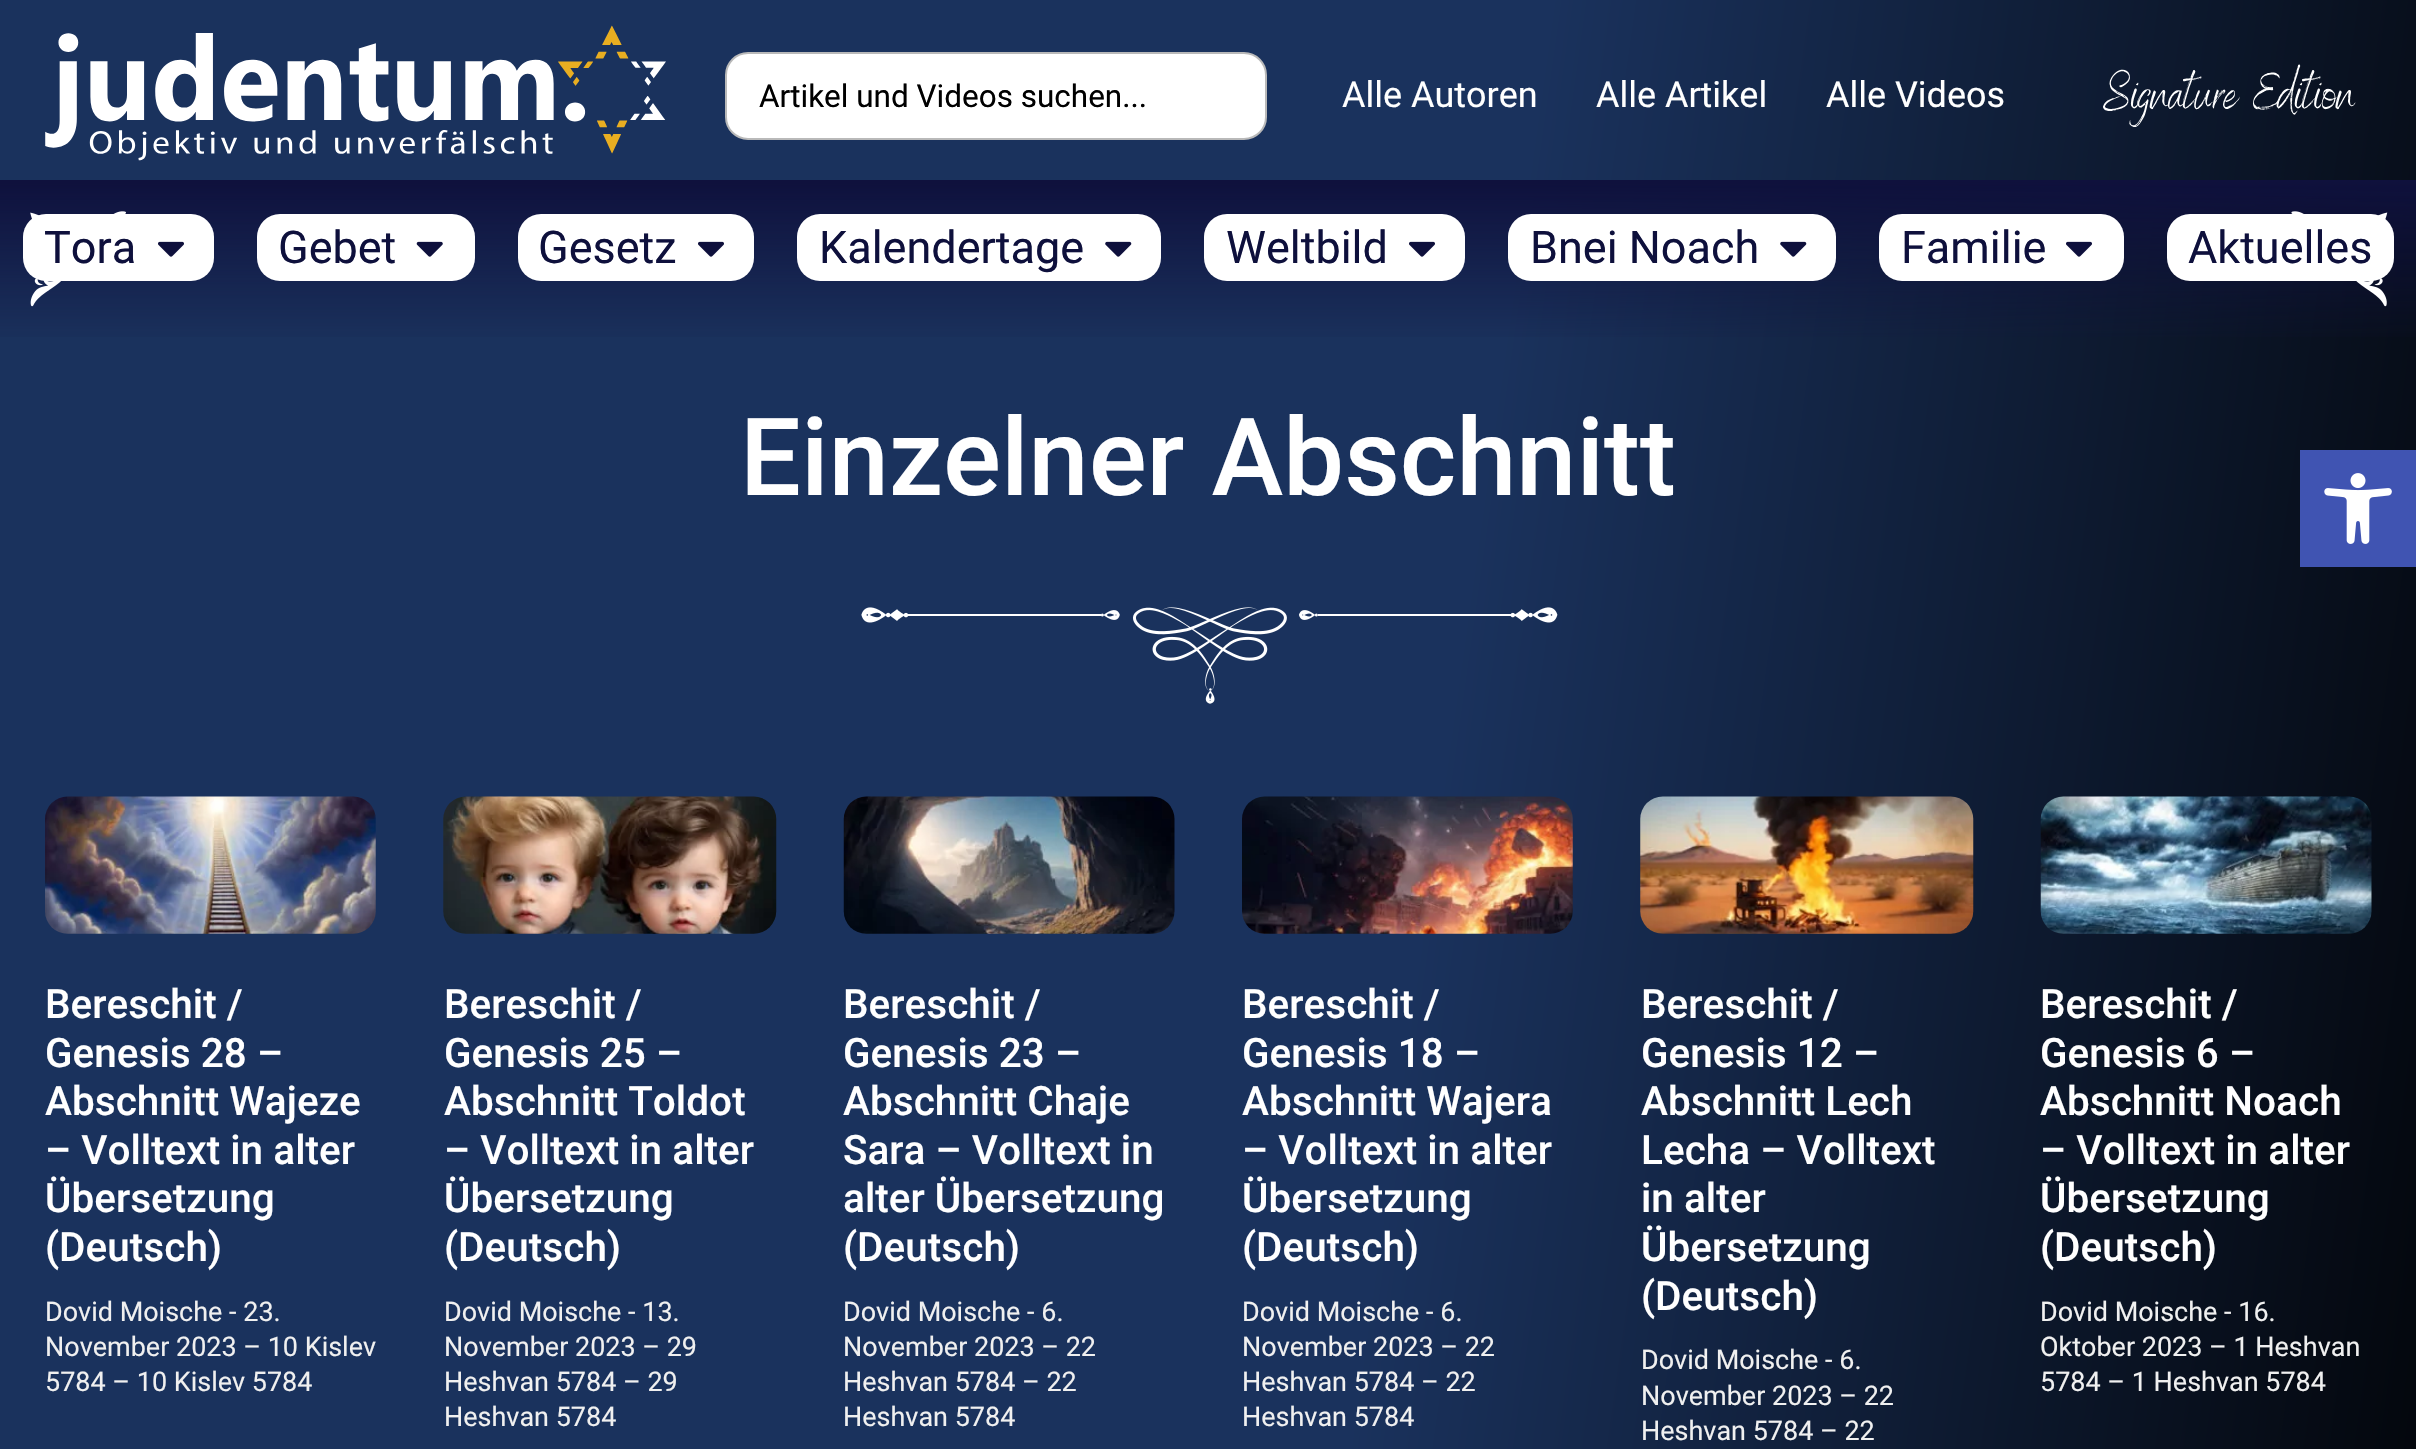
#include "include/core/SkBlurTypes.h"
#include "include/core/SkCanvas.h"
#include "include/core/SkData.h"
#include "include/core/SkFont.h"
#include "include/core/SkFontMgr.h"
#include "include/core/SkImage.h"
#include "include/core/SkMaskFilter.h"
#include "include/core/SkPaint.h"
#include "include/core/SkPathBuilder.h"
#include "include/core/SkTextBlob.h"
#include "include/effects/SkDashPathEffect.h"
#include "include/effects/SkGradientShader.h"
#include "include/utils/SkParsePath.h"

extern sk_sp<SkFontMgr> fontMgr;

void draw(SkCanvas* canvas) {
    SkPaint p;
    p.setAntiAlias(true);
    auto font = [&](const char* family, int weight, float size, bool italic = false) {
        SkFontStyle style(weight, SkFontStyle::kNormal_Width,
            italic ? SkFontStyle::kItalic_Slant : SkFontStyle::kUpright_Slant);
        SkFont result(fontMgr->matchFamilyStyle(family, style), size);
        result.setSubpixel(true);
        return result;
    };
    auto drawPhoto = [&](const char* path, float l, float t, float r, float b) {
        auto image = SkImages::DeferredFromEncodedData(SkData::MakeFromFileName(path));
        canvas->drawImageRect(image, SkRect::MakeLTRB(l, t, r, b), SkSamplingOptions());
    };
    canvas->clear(0xFFFFFFFF);
    {
        const SkColor colors[] = {0xFF1A325D, 0xFF000000};
        const float stops[] = {0.51f, 0.92f};
        const SkPoint ends[] = {{-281, 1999}, {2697, 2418}};
        p.setShader(SkGradientShader::MakeLinear(ends, colors, stops, 2, SkTileMode::kClamp));
        p.setAlpha(255);
    }
    canvas->drawRect(SkRect::MakeLTRB(0, 0, 2416, 1449), p);
    drawPhoto("media/1.png", 45, 25, 666, 161);
    p.setShader(nullptr);
    p.setColor(0xFFFFFFFF);
    canvas->drawRoundRect(SkRect::MakeLTRB(726, 53, 1266, 139), 22, 22, p);
    p.setStyle(SkPaint::kStroke_Style);
    p.setStrokeWidth(2);
    p.setColor(0xFFB9B9B9);
    canvas->drawRoundRect(SkRect::MakeLTRB(726, 53, 1266, 139), 22, 22, p);
    auto font1 = font("Roboto", 400, 31.5f);
    p.setStyle(SkPaint::kFill_Style);
    p.setColor(0xFF000000);
    canvas->drawString("Artikel und Videos suchen...", 759, 107, font1, p);
    auto font2 = font("Roboto", 400, 36);
    p.setColor(0xFFFFFFFF);
    {
        const struct { const char* s; float x, y; } items[] = {
            {"Alle Autoren", 1342, 107},
            {"Alle Artikel", 1596, 107},
            {"Alle Videos", 1826, 107},
        };
        for (auto [s, x, y] : items) {
            canvas->drawString(s, x, y, font2, p);
        }
    }
    drawPhoto("media/2.png", 2103, 64, 2356, 127);
    {
        const SkColor colors[] = {0xFF0E103C, 0x000E103C};
        const float stops[] = {0, 1};
        const SkPoint ends[] = {{1208, 180}, {1208, 349}};
        p.setShader(SkGradientShader::MakeLinear(ends, colors, stops, 2, SkTileMode::kClamp));
        p.setAlpha(255);
    }
    canvas->drawRect(SkRect::MakeLTRB(0, 180, 2416, 337), p);
    drawPhoto("media/3.png", 30, 211, 126, 307);
    drawPhoto("media/4.png", 2291, 211, 2388, 307);
    p.setShader(nullptr);
    p.setColor(0xFFFFFFFF);
    canvas->drawRoundRect(SkRect::MakeLTRB(23, 214, 214, 281), 23, 23, p);
    auto font3 = font("Roboto", 400, 45);
    p.setColor(0xFF0E103C);
    canvas->drawString("Tora", 44, 263, font3, p);
    drawPhoto("media/5.png", 158, 241, 184, 257);
    p.setColor(0xFFFFFFFF);
    canvas->drawRoundRect(SkRect::MakeLTRB(257, 214, 475, 281), 23, 23, p);
    p.setColor(0xFF0E103C);
    canvas->drawString("Gebet", 278, 263, font3, p);
    drawPhoto("media/6.png", 416, 241, 443, 257);
    p.setColor(0xFFFFFFFF);
    canvas->drawRoundRect(SkRect::MakeLTRB(518, 214, 754, 281), 23, 23, p);
    p.setColor(0xFF0E103C);
    canvas->drawString("Gesetz", 538, 263, font3, p);
    drawPhoto("media/5.png", 698, 241, 724, 257);
    p.setColor(0xFFFFFFFF);
    canvas->drawRoundRect(SkRect::MakeLTRB(797, 214, 1161, 281), 23, 23, p);
    p.setColor(0xFF0E103C);
    canvas->drawString("Kalendertage", 819, 263, font3, p);
    drawPhoto("media/7.png", 1105, 241, 1132, 257);
    p.setColor(0xFFFFFFFF);
    canvas->drawRoundRect(SkRect::MakeLTRB(1204, 214, 1465, 281), 23, 23, p);
    p.setColor(0xFF0E103C);
    canvas->drawString("Weltbild", 1226, 263, font3, p);
    drawPhoto("media/5.png", 1409, 241, 1435, 257);
    p.setColor(0xFFFFFFFF);
    canvas->drawRoundRect(SkRect::MakeLTRB(1508, 214, 1836, 281), 23, 23, p);
    p.setColor(0xFF0E103C);
    canvas->drawString("Bnei Noach", 1530, 263, font3, p);
    drawPhoto("media/7.png", 1780, 241, 1807, 257);
    p.setColor(0xFFFFFFFF);
    canvas->drawRoundRect(SkRect::MakeLTRB(1879, 214, 2124, 281), 23, 23, p);
    p.setColor(0xFF0E103C);
    canvas->drawString("Familie", 1901, 263, font3, p);
    drawPhoto("media/5.png", 2066, 241, 2092, 257);
    p.setColor(0xFFFFFFFF);
    canvas->drawRoundRect(SkRect::MakeLTRB(2167, 214, 2394, 281), 23, 23, p);
    p.setColor(0xFF0E103C);
    canvas->drawString("Aktuelles", 2188, 263, font3, p);
    auto font4 = font("Roboto", 500, 108);
    p.setColor(0xFFFFFFFF);
    canvas->drawString("Einzelner Abschnitt", 740, 495, font4, p);
    drawPhoto("media/8.png", 861, 607, 1558, 704);
    drawPhoto("media/9.png", 45, 796, 376, 934);
    auto font5 = font("Roboto", 500, 40.5f);
    {
        const struct { const char* s; float x, y; } items[] = {
            {"Bereschit /", 45, 1018},
            {"Genesis 28 –", 45, 1067},
            {"Abschnitt Wajeze", 45, 1115},
            {"– Volltext in alter", 45, 1164},
            {"Übersetzung", 45, 1212},
            {"(Deutsch)", 45, 1261},
        };
        for (auto [s, x, y] : items) {
            canvas->drawString(s, x, y, font5, p);
        }
    }
    auto font6 = font("Roboto", 400, 27);
    p.setColor(0xFFF0F0F0);
    {
        const struct { const char* s; float x, y; } items[] = {
            {"Dovid Moische - 23.", 45, 1321},
            {"November 2023 – 10 Kislev", 45, 1356},
            {"5784 – 10 Kislev 5784", 45, 1391},
        };
        for (auto [s, x, y] : items) {
            canvas->drawString(s, x, y, font6, p);
        }
    }
    drawPhoto("media/10.png", 443, 796, 777, 934);
    p.setColor(0xFFFFFFFF);
    {
        const struct { const char* s; float x, y; } items[] = {
            {"Bereschit /", 444, 1018},
            {"Genesis 25 –", 444, 1067},
            {"Abschnitt Toldot", 444, 1115},
            {"– Volltext in alter", 444, 1164},
            {"Übersetzung", 444, 1212},
            {"(Deutsch)", 444, 1261},
        };
        for (auto [s, x, y] : items) {
            canvas->drawString(s, x, y, font5, p);
        }
    }
    p.setColor(0xFFF0F0F0);
    {
        const struct { const char* s; float x, y; } items[] = {
            {"Dovid Moische - 13.", 444, 1321},
            {"November 2023 – 29", 444, 1356},
            {"Heshvan 5784 – 29", 444, 1391},
            {"Heshvan 5784", 444, 1426},
        };
        for (auto [s, x, y] : items) {
            canvas->drawString(s, x, y, font6, p);
        }
    }
    drawPhoto("media/11.png", 843, 796, 1175, 934);
    p.setColor(0xFFFFFFFF);
    {
        const struct { const char* s; float x, y; } items[] = {
            {"Bereschit /", 843, 1018},
            {"Genesis 23 –", 843, 1067},
            {"Abschnitt Chaje", 843, 1115},
            {"Sara – Volltext in", 843, 1164},
            {"alter Übersetzung", 843, 1212},
            {"(Deutsch)", 843, 1261},
        };
        for (auto [s, x, y] : items) {
            canvas->drawString(s, x, y, font5, p);
        }
    }
    p.setColor(0xFFF0F0F0);
    {
        const struct { const char* s; float x, y; } items[] = {
            {"Dovid Moische - 6.", 843, 1321},
            {"November 2023 – 22", 843, 1356},
            {"Heshvan 5784 – 22", 843, 1391},
            {"Heshvan 5784", 843, 1426},
        };
        for (auto [s, x, y] : items) {
            canvas->drawString(s, x, y, font6, p);
        }
    }
    drawPhoto("media/12.png", 1242, 796, 1573, 934);
    p.setColor(0xFFFFFFFF);
    {
        const struct { const char* s; float x, y; } items[] = {
            {"Bereschit /", 1242, 1018},
            {"Genesis 18 –", 1242, 1067},
            {"Abschnitt Wajera", 1242, 1115},
            {"– Volltext in alter", 1242, 1164},
            {"Übersetzung", 1242, 1212},
            {"(Deutsch)", 1242, 1261},
        };
        for (auto [s, x, y] : items) {
            canvas->drawString(s, x, y, font5, p);
        }
    }
    p.setColor(0xFFF0F0F0);
    {
        const struct { const char* s; float x, y; } items[] = {
            {"Dovid Moische - 6.", 1242, 1321},
            {"November 2023 – 22", 1242, 1356},
            {"Heshvan 5784 – 22", 1242, 1391},
            {"Heshvan 5784", 1242, 1426},
        };
        for (auto [s, x, y] : items) {
            canvas->drawString(s, x, y, font6, p);
        }
    }
    drawPhoto("media/13.png", 1640, 796, 1974, 934);
    p.setColor(0xFFFFFFFF);
    {
        const struct { const char* s; float x, y; } items[] = {
            {"Bereschit /", 1641, 1018},
            {"Genesis 12 –", 1641, 1067},
            {"Abschnitt Lech", 1641, 1115},
            {"Lecha – Volltext", 1641, 1164},
            {"in alter", 1641, 1212},
            {"Übersetzung", 1641, 1261},
            {"(Deutsch)", 1641, 1310},
        };
        for (auto [s, x, y] : items) {
            canvas->drawString(s, x, y, font5, p);
        }
    }
    p.setColor(0xFFF0F0F0);
    {
        const struct { const char* s; float x, y; } items[] = {
            {"Dovid Moische - 6.", 1641, 1369},
            {"November 2023 – 22", 1641, 1405},
            {"Heshvan 5784 – 22", 1641, 1440},
        };
        for (auto [s, x, y] : items) {
            canvas->drawString(s, x, y, font6, p);
        }
    }
    drawPhoto("media/14.png", 2040, 796, 2372, 934);
    p.setColor(0xFFFFFFFF);
    {
        const struct { const char* s; float x, y; } items[] = {
            {"Bereschit /", 2040, 1018},
            {"Genesis 6 –", 2040, 1067},
            {"Abschnitt Noach", 2040, 1115},
            {"– Volltext in alter", 2040, 1164},
            {"Übersetzung", 2040, 1212},
            {"(Deutsch)", 2040, 1261},
        };
        for (auto [s, x, y] : items) {
            canvas->drawString(s, x, y, font5, p);
        }
    }
    p.setColor(0xFFF0F0F0);
    {
        const struct { const char* s; float x, y; } items[] = {
            {"Dovid Moische - 16.", 2040, 1321},
            {"Oktober 2023 – 1 Heshvan", 2040, 1356},
            {"5784 – 1 Heshvan 5784", 2040, 1391},
        };
        for (auto [s, x, y] : items) {
            canvas->drawString(s, x, y, font6, p);
        }
    }
    p.setColor(0xFF4054B2);
    canvas->drawRect(SkRect::MakeLTRB(2300, 450, 2416, 567), p);
    drawPhoto("media/15.png", 2324, 473, 2392, 544);
}
